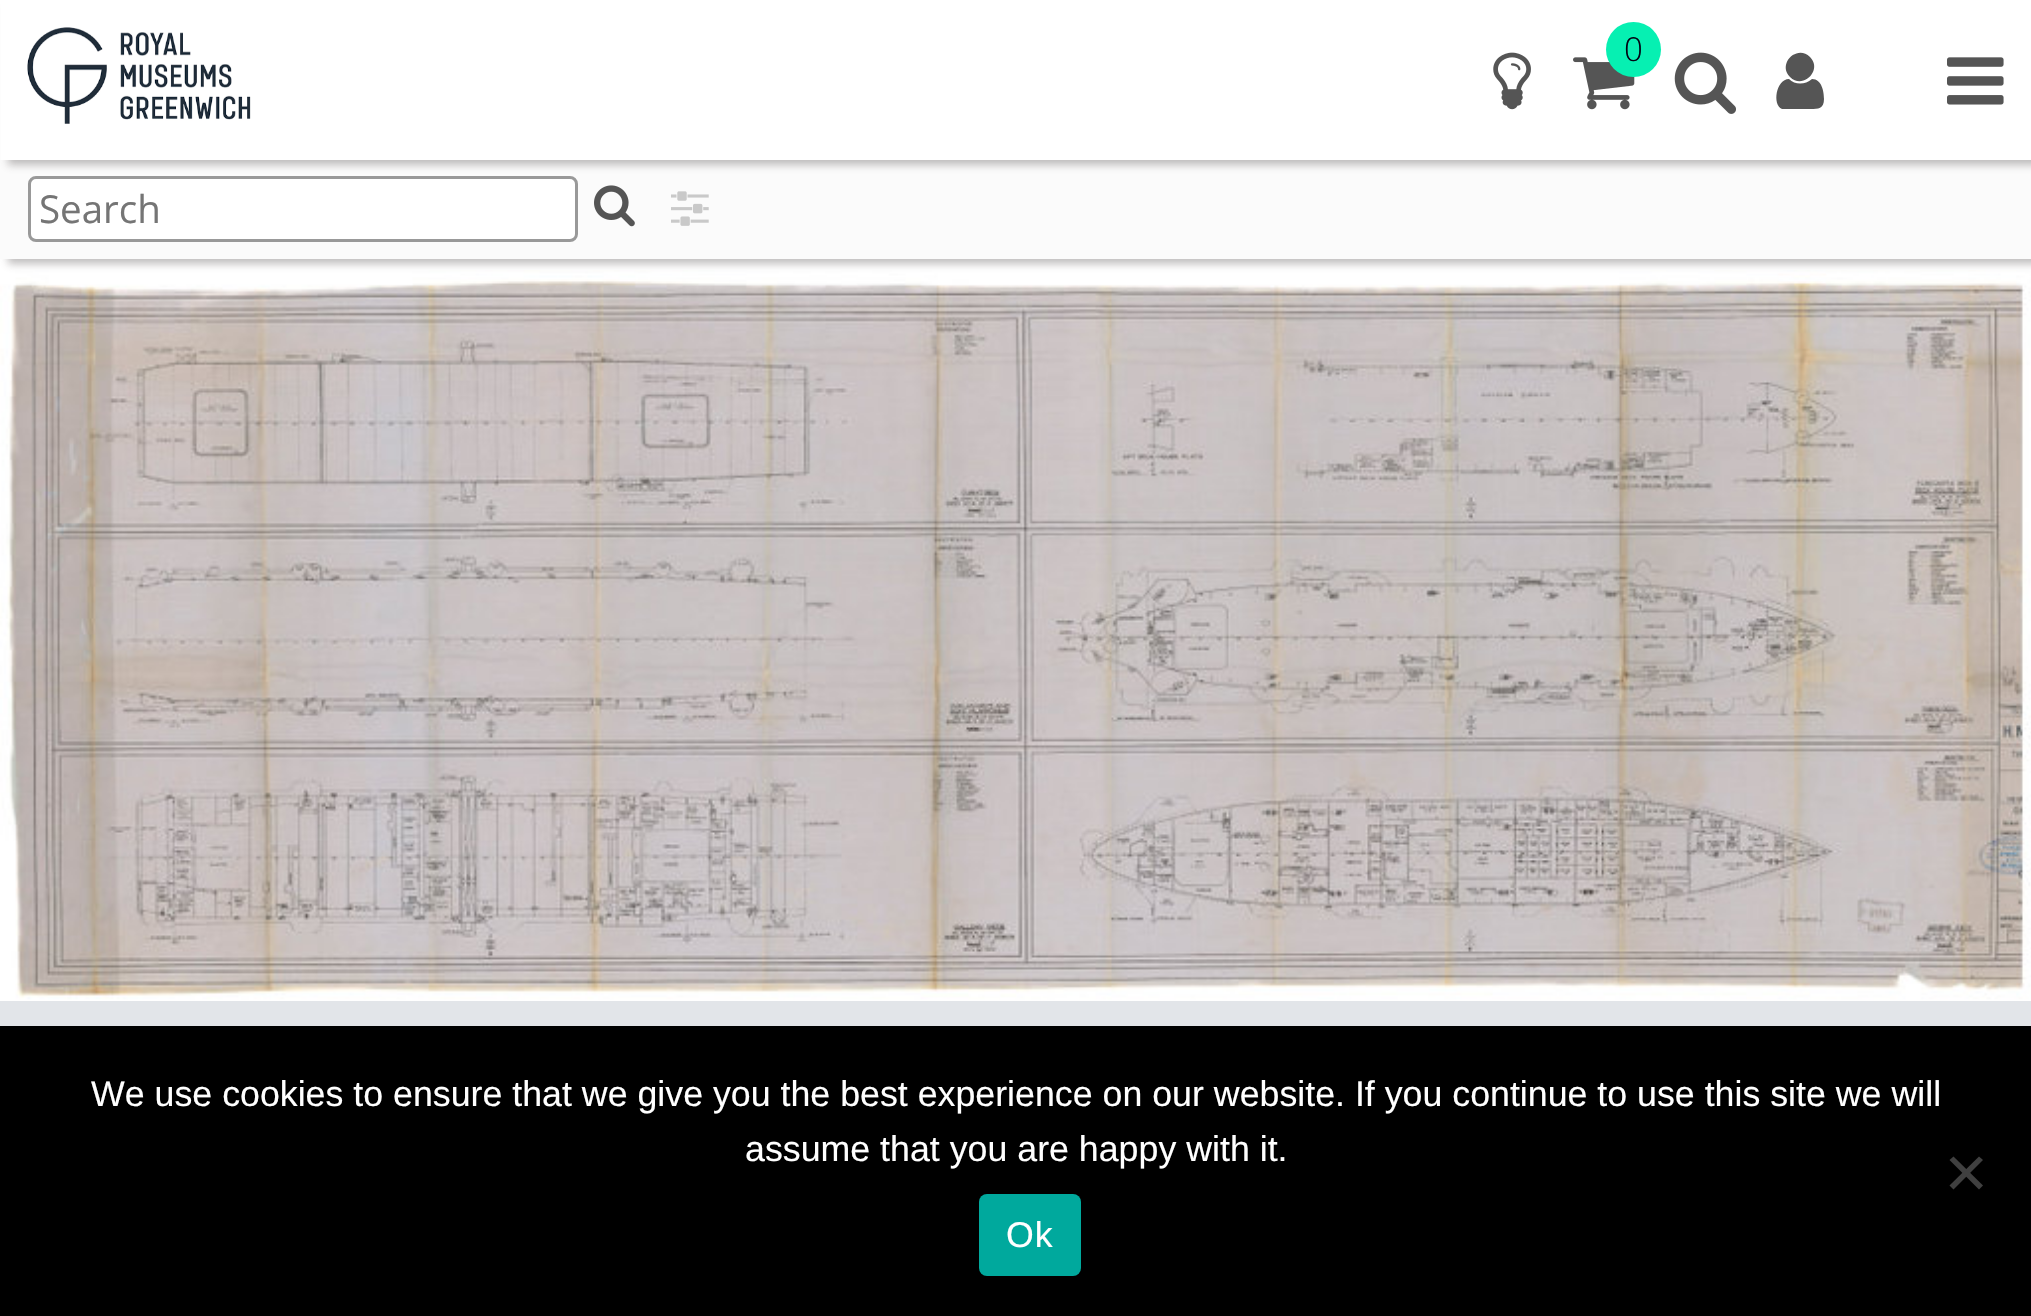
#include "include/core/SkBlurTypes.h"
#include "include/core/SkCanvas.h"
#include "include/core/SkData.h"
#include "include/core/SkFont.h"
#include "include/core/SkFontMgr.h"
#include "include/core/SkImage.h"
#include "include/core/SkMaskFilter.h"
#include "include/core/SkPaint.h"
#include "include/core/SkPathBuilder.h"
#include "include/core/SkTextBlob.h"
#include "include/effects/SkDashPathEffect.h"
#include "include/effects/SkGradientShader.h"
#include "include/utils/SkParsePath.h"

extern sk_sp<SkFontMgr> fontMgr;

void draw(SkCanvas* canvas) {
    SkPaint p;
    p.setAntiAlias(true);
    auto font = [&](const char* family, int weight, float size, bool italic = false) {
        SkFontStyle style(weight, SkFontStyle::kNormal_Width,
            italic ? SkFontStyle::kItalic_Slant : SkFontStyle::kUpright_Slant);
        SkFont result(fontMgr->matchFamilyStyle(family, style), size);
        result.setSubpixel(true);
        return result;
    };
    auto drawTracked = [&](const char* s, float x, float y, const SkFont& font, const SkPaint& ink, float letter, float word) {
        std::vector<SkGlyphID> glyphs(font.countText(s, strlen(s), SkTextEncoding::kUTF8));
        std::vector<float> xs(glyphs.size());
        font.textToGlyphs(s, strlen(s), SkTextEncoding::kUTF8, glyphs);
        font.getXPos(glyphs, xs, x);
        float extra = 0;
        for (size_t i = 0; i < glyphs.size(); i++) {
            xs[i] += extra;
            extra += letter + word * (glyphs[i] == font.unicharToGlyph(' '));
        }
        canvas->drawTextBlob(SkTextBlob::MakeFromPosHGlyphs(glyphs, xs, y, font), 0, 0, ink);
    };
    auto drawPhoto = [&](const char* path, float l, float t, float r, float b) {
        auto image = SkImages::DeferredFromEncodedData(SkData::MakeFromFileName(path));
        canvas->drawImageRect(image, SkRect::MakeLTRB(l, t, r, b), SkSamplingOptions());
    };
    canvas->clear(0xFFFFFFFF);
    drawPhoto("media/8.png", 0, 270, 2031, 1001);
    p.setColor(0x594A4545);
    p.setMaskFilter(SkMaskFilter::MakeBlur(kNormal_SkBlurStyle, 4));
    canvas->drawRect(SkRect::MakeLTRB(8, 165, 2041, 264), p);
    p.setMaskFilter(nullptr);
    p.setColor(0xFFFBFBFB);
    canvas->drawRect(SkRect::MakeLTRB(0, 160, 2031, 259), p);
    p.setColor(0xFFFFFFFF);
    canvas->drawRoundRect(SkRect::MakeLTRB(29.5f, 177.5f, 576.5f, 240.5f), 6.5f, 6.5f, p);
    p.setStyle(SkPaint::kStroke_Style);
    p.setStrokeWidth(3);
    p.setColor(0xFF999999);
    canvas->drawRoundRect(SkRect::MakeLTRB(29.5f, 177.5f, 576.5f, 240.5f), 6.5f, 6.5f, p);
    p.setStyle(SkPaint::kFill_Style);
    p.setColor(0x594A4545);
    p.setMaskFilter(SkMaskFilter::MakeBlur(kNormal_SkBlurStyle, 4));
    canvas->drawRect(SkRect::MakeLTRB(8, 6, 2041, 165), p);
    p.setMaskFilter(nullptr);
    p.setColor(0xFFFFFFFF);
    canvas->drawRect(SkRect::MakeLTRB(1, 0, 2031, 160), p);
    drawPhoto("media/1.png", 27, 27, 251, 124);
    drawPhoto("media/2.png", 1573, 57, 1635, 110);
    p.setColor(0xFF06F0B2);
    canvas->drawCircle(1633.5f, 49.5f, 27.5f, p);
    auto font1 = font("Open Sans", 300, 33);
    p.setColor(0xFF010413);
    canvas->drawString("0", 1624, 61, font1, p);
    drawPhoto("media/3.png", 1493, 52, 1531, 110);
    drawPhoto("media/4.png", 1674, 52, 1736, 114);
    p.setColor(0xFF555555);
    canvas->drawPath(SkPathBuilder().moveTo(1824, 99).cubicTo(1824, 109, 1818, 109, 1811, 109).lineTo(1782, 109).cubicTo(1772, 105, 1776, 79, 1789, 79).cubicTo(1795, 85, 1805, 85, 1812, 79).cubicTo(1822, 79, 1824, 92, 1824, 99).close().moveTo(1810, 57).cubicTo(1823, 70, 1803, 90, 1790, 77).cubicTo(1777, 64, 1797, 44, 1810, 57).close().detach(), p);
    drawPhoto("media/5.png", 1947, 57, 2004, 105);
    auto font2 = font("Open Sans", 400, 38.5f);
    p.setColor(0xFF757575);
    canvas->drawString("Search", 39, 223, font2, p);
    drawPhoto("media/6.png", 594, 185, 635, 227);
    drawPhoto("media/7.png", 671, 191, 709, 226);
    p.setColor(0xFFE2E5E9);
    canvas->drawRect(SkRect::MakeLTRB(0, 1001, 2031, 1026), p);
    p.setColor(0xFF000000);
    canvas->drawRect(SkRect::MakeLTRB(0, 1026, 2031, 1316), p);
    auto font3 = font("Liberation Sans", 400, 35.75f);
    p.setColor(0xFFFFFFFF);
    canvas->drawString("We use cookies to ensure that we give you the best experience on our website. If you continue to use this site we will", 91, 1106, font3, p);
    canvas->drawString("assume that you are happy with it.", 745, 1161, font3, p);
    p.setColor(0xFF404040);
    canvas->drawPath(SkPathBuilder().moveTo(1979, 1156.5f).lineTo(1983, 1160).lineTo(1953.5f, 1189.5f).lineTo(1949.5f, 1185.5f).close().detach(), p);
    canvas->drawPath(SkPathBuilder().moveTo(1949.5f, 1160).lineTo(1953.5f, 1156.5f).lineTo(1983, 1185.5f).lineTo(1979, 1189.5f).close().detach(), p);
    p.setColor(0xFF00A99D);
    canvas->drawRoundRect(SkRect::MakeLTRB(979, 1194, 1081, 1276), 8, 8, p);
    p.setColor(0xFFFFFFFF);
    drawTracked("Ok", 1006, 1247, font3, p, 1, 0);
}
